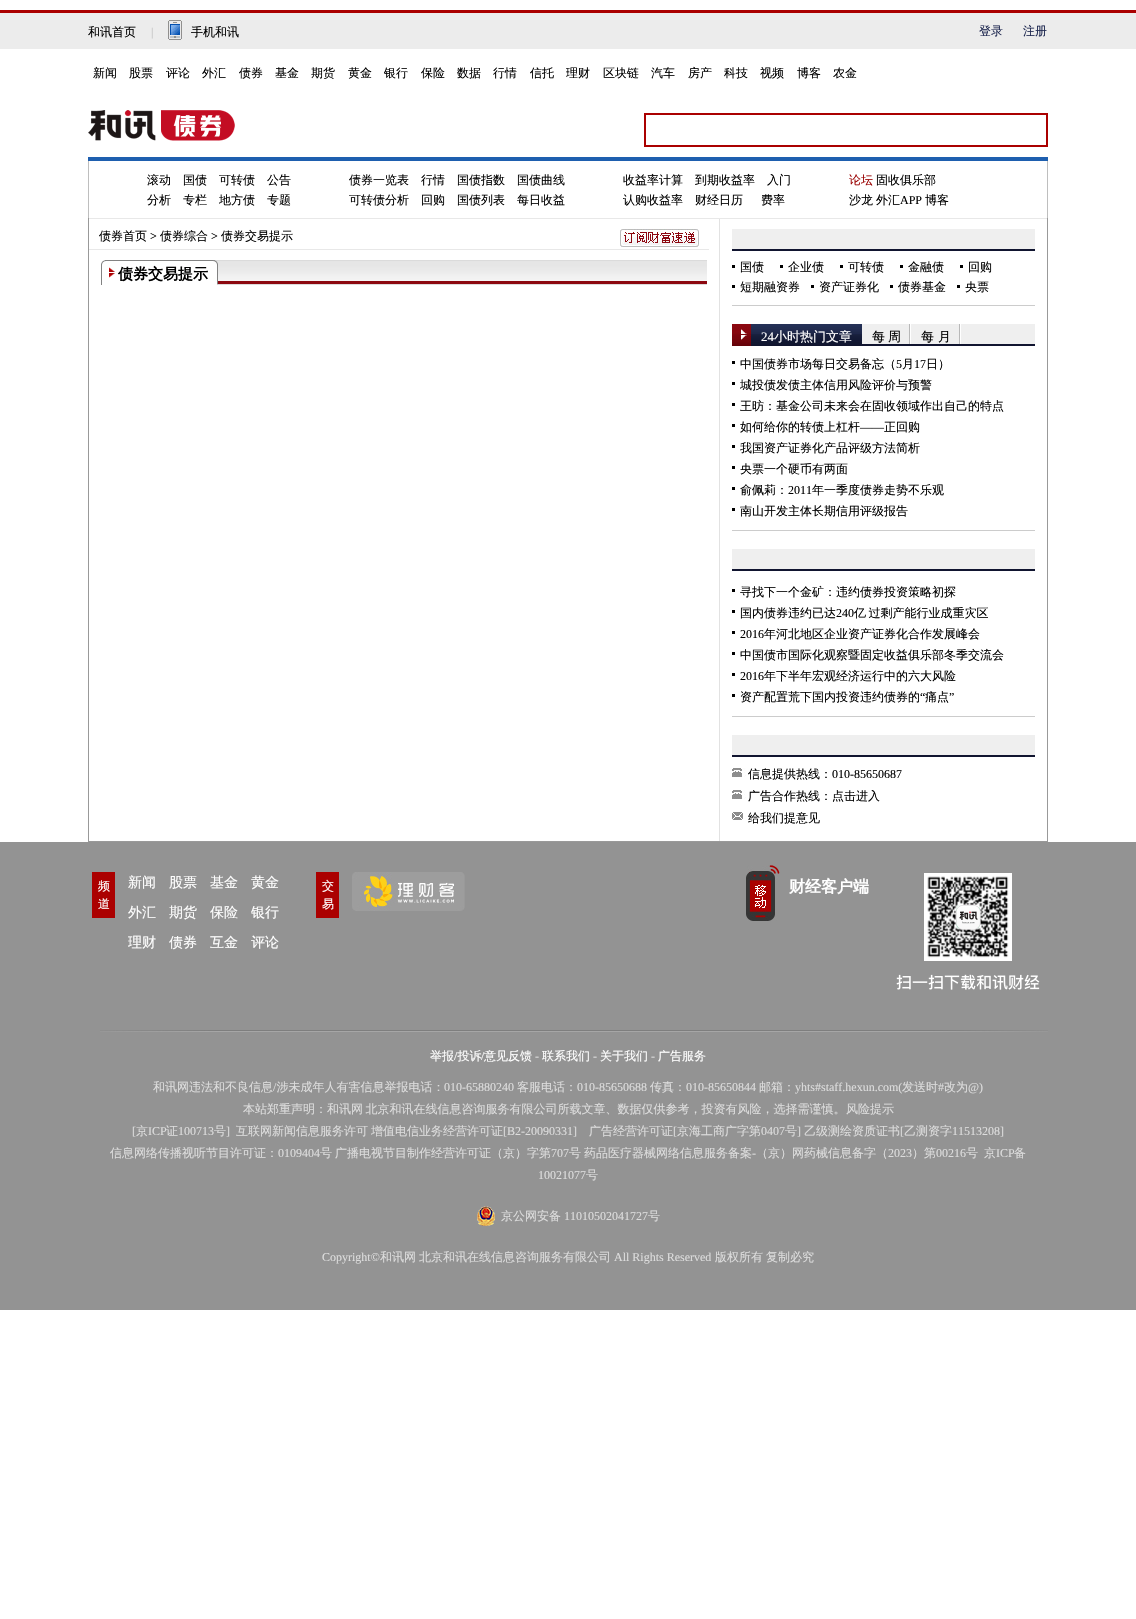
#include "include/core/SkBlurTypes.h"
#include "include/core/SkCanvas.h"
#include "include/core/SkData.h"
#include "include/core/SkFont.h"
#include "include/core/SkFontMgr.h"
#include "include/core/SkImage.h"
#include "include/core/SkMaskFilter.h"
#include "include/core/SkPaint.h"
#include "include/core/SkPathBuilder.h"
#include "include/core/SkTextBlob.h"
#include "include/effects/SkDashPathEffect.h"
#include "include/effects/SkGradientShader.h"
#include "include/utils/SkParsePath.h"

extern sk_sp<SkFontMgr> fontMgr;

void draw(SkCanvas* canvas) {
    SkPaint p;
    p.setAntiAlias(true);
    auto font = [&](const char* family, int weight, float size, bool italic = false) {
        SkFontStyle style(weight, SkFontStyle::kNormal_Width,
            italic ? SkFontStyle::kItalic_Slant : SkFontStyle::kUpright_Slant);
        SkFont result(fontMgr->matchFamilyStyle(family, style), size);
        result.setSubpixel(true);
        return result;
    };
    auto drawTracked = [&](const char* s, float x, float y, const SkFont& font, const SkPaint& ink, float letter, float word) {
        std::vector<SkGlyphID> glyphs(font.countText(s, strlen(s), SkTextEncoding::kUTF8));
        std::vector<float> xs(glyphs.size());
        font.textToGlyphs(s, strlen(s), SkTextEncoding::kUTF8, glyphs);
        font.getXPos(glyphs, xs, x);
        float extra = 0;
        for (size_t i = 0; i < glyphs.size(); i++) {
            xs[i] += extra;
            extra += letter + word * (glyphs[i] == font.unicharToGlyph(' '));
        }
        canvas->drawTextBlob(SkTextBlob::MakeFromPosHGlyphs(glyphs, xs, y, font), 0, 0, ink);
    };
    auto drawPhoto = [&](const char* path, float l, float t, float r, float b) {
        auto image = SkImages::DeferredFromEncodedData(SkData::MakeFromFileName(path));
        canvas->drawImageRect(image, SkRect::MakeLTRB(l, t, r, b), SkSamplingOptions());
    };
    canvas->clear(0xFFFFFFFF);
    p.setColor(0xFFECECEC);
    canvas->drawRect(SkRect::MakeLTRB(0, 13, 1136, 49), p);
    p.setColor(0xFFAA0000);
    canvas->drawRect(SkRect::MakeLTRB(0, 10, 1136, 13), p);
    auto font1 = font("WenQuanYi Zen Hei", 500, 12);
    p.setColor(0xFF000000);
    canvas->drawString("和讯首页", 88, 36, font1, p);
    auto font2 = font("Liberation Serif", 400, 12);
    p.setColor(0xFFC3C3C3);
    canvas->drawString("|", 151, 36, font2, p);
    drawPhoto("media/1.png", 168, 20, 182, 40);
    p.setColor(0xFF000000);
    canvas->drawString("手机和讯", 191, 36, font1, p);
    p.setColor(0xFF1E2850);
    canvas->drawString("登录", 979, 35, font1, p);
    canvas->drawString("注册", 1023, 35, font1, p);
    p.setColor(0xFF000000);
    {
        const struct { const char* s; float x, y; } items[] = {
            {"新闻", 93, 77},
            {"股票", 129, 77},
            {"评论", 166, 77},
            {"外汇", 202, 77},
            {"债券", 239, 77},
            {"基金", 275, 77},
            {"期货", 311, 77},
            {"黄金", 348, 77},
            {"银行", 384, 77},
            {"保险", 421, 77},
            {"数据", 457, 77},
            {"行情", 493, 77},
            {"信托", 530, 77},
            {"理财", 566, 77},
            {"区块链", 603, 77},
            {"汽车", 651, 77},
            {"房产", 688, 77},
            {"科技", 724, 77},
            {"视频", 760, 77},
            {"博客", 797, 77},
            {"农金", 833, 77},
        };
        for (auto [s, x, y] : items) {
            canvas->drawString(s, x, y, font1, p);
        }
    }
    drawPhoto("media/2.png", 88, 110, 156, 141);
    drawPhoto("media/3.png", 161, 110, 235, 141);
    p.setStyle(SkPaint::kStroke_Style);
    p.setStrokeWidth(2);
    p.setColor(0xFFAA0000);
    canvas->drawRect(SkRect::MakeLTRB(645, 114, 1047, 146), p);
    p.setStyle(SkPaint::kFill_Style);
    {
        const struct { float l, t, r, b; SkColor color; } items[] = {
            {88, 157, 1048, 161, 0xFF1E5FAF},
            {1047, 161, 1048, 218, 0xFFBEBEBE},
            {88, 161, 89, 218, 0xFFBEBEBE},
        };
        for (auto [l, t, r, b, color] : items) {
            p.setColor(color);
            canvas->drawRect(SkRect::MakeLTRB(l, t, r, b), p);
        }
    }
    p.setColor(0xFF000000);
    {
        const struct { const char* s; float x, y; } items[] = {
            {"滚动", 147, 184},
            {"国债", 183, 184},
            {"可转债", 219, 184},
            {"公告", 267, 184},
            {"分析", 147, 204},
            {"专栏", 183, 204},
            {"地方债", 219, 204},
            {"专题", 267, 204},
            {"债券一览表", 349, 184},
            {"行情", 421, 184},
            {"国债指数", 457, 184},
            {"国债曲线", 517, 184},
            {"可转债分析", 349, 204},
            {"回购", 421, 204},
            {"国债列表", 457, 204},
            {"每日收益", 517, 204},
            {"收益率计算", 623, 184},
            {"到期收益率", 695, 184},
            {"入门", 767, 184},
            {"认购收益率", 623, 204},
            {"财经日历", 695, 204},
            {"费率", 761, 204},
        };
        for (auto [s, x, y] : items) {
            canvas->drawString(s, x, y, font1, p);
        }
    }
    p.setColor(0xFF990000);
    canvas->drawString("论坛", 849, 184, font1, p);
    p.setColor(0xFF000000);
    {
        const struct { const char* s; float x, y; } items[] = {
            {"固收俱乐部", 876, 184},
            {"沙龙", 849, 204},
            {"外汇", 876, 204},
        };
        for (auto [s, x, y] : items) {
            canvas->drawString(s, x, y, font1, p);
        }
    }
    canvas->drawString("APP", 900, 204, font2, p);
    canvas->drawString("博客", 925, 204, font1, p);
    {
        const struct { float l, t, r, b; SkColor color; } items[] = {
            {88, 218, 1048, 219, 0xFFE8E8E8},
            {1047, 218, 1048, 842, 0xFF999999},
            {88, 841, 1048, 842, 0xFF999999},
            {88, 218, 89, 842, 0xFF999999},
            {719, 219, 720, 841, 0xFFE2E2E2},
            {89, 249, 709, 250, 0xFFE8E8E8},
        };
        for (auto [l, t, r, b, color] : items) {
            p.setColor(color);
            canvas->drawRect(SkRect::MakeLTRB(l, t, r, b), p);
        }
    }
    p.setColor(0xFF000000);
    canvas->drawString("债券首页", 99, 240, font1, p);
    canvas->drawString(">", 150, 240, font2, p);
    canvas->drawString("债券综合", 160, 240, font1, p);
    canvas->drawString(">", 211, 240, font2, p);
    canvas->drawString("债券交易提示", 221, 240, font1, p);
    drawPhoto("media/4.png", 620, 229, 699, 247);
    drawPhoto("media/5.png", 218, 260, 707, 285);
    drawPhoto("media/6.png", 101, 260, 137, 285);
    drawPhoto("media/7.png", 137, 260, 218, 285);
    auto font3 = font("WenQuanYi Zen Hei", 700, 15);
    canvas->drawString("债券交易提示", 118, 279, font3, p);
    drawPhoto("media/8.png", 732, 229, 1035, 251);
    canvas->drawString("国债", 740, 271, font1, p);
    canvas->drawRect(SkRect::MakeLTRB(732, 265, 735, 268), p);
    canvas->drawString("企业债", 788, 271, font1, p);
    canvas->drawRect(SkRect::MakeLTRB(780, 265, 783, 268), p);
    canvas->drawString("可转债", 848, 271, font1, p);
    canvas->drawRect(SkRect::MakeLTRB(840, 265, 843, 268), p);
    canvas->drawString("金融债", 908, 271, font1, p);
    canvas->drawRect(SkRect::MakeLTRB(900, 265, 903, 268), p);
    canvas->drawString("回购", 968, 271, font1, p);
    canvas->drawRect(SkRect::MakeLTRB(960, 265, 963, 268), p);
    canvas->drawString("短期融资券", 740, 291, font1, p);
    canvas->drawRect(SkRect::MakeLTRB(732, 285, 735, 288), p);
    canvas->drawString("资产证券化", 819, 291, font1, p);
    canvas->drawRect(SkRect::MakeLTRB(811, 285, 814, 288), p);
    canvas->drawString("债券基金", 898, 291, font1, p);
    canvas->drawRect(SkRect::MakeLTRB(890, 285, 893, 288), p);
    canvas->drawString("央票", 965, 291, font1, p);
    canvas->drawRect(SkRect::MakeLTRB(957, 285, 960, 288), p);
    p.setColor(0xFFCCCCCC);
    canvas->drawRect(SkRect::MakeLTRB(732, 305, 1035, 306), p);
    drawPhoto("media/9.png", 862, 324, 1035, 346);
    drawPhoto("media/10.png", 732, 324, 751, 346);
    drawPhoto("media/11.png", 751, 324, 862, 346);
    auto font4 = font("Liberation Serif", 400, 13);
    p.setColor(0xFFFFFFFF);
    canvas->drawString("24", 761, 341, font4, p);
    auto font5 = font("WenQuanYi Zen Hei", 500, 13);
    canvas->drawString("小时热门文章", 774, 341, font5, p);
    drawPhoto("media/12.png", 909, 324, 911, 344);
    p.setColor(0xFF000000);
    canvas->drawString("每", 872, 341, font5, p);
    canvas->drawString("周", 888, 341, font5, p);
    drawPhoto("media/12.png", 959, 324, 961, 344);
    canvas->drawString("每", 921, 341, font5, p);
    canvas->drawString("月", 938, 341, font5, p);
    canvas->drawRect(SkRect::MakeLTRB(732, 361, 735, 364), p);
    canvas->drawString("中国债券市场每日交易备忘（", 740, 368, font1, p);
    canvas->drawString("5", 896, 368, font2, p);
    canvas->drawString("月", 902, 368, font1, p);
    canvas->drawString("17", 914, 368, font2, p);
    canvas->drawString("日）", 926, 368, font1, p);
    canvas->drawRect(SkRect::MakeLTRB(732, 382, 735, 385), p);
    canvas->drawString("城投债发债主体信用风险评价与预警", 740, 389, font1, p);
    canvas->drawRect(SkRect::MakeLTRB(732, 403, 735, 406), p);
    canvas->drawString("王昉：基金公司未来会在固收领域作出自己的特点", 740, 410, font1, p);
    canvas->drawRect(SkRect::MakeLTRB(732, 424, 735, 427), p);
    canvas->drawString("如何给你的转债上杠杆", 740, 431, font1, p);
    canvas->drawString("——", 860, 431, font2, p);
    canvas->drawString("正回购", 884, 431, font1, p);
    canvas->drawRect(SkRect::MakeLTRB(732, 445, 735, 448), p);
    canvas->drawString("我国资产证券化产品评级方法简析", 740, 452, font1, p);
    canvas->drawRect(SkRect::MakeLTRB(732, 466, 735, 469), p);
    canvas->drawString("央票一个硬币有两面", 740, 473, font1, p);
    canvas->drawRect(SkRect::MakeLTRB(732, 487, 735, 490), p);
    canvas->drawString("俞佩莉：", 740, 494, font1, p);
    canvas->drawString("2011", 788, 494, font2, p);
    canvas->drawString("年一季度债券走势不乐观", 812, 494, font1, p);
    canvas->drawRect(SkRect::MakeLTRB(732, 508, 735, 511), p);
    canvas->drawString("南山开发主体长期信用评级报告", 740, 515, font1, p);
    p.setColor(0xFFCCCCCC);
    canvas->drawRect(SkRect::MakeLTRB(732, 530, 1035, 531), p);
    drawPhoto("media/8.png", 732, 549, 1035, 571);
    p.setColor(0xFF000000);
    canvas->drawRect(SkRect::MakeLTRB(732, 589, 735, 592), p);
    canvas->drawString("寻找下一个金矿：违约债券投资策略初探", 740, 596, font1, p);
    canvas->drawRect(SkRect::MakeLTRB(732, 610, 735, 613), p);
    canvas->drawString("国内债券违约已达", 740, 617, font1, p);
    canvas->drawString("240", 836, 617, font2, p);
    drawTracked("亿 过剩产能行业成重灾区", 854, 617, font1, p, 0, -1);
    canvas->drawRect(SkRect::MakeLTRB(732, 631, 735, 634), p);
    canvas->drawString("2016", 740, 638, font2, p);
    canvas->drawString("年河北地区企业资产证券化合作发展峰会", 764, 638, font1, p);
    canvas->drawRect(SkRect::MakeLTRB(732, 652, 735, 655), p);
    canvas->drawString("中国债市国际化观察暨固定收益俱乐部冬季交流会", 740, 659, font1, p);
    canvas->drawRect(SkRect::MakeLTRB(732, 673, 735, 676), p);
    canvas->drawString("2016", 740, 680, font2, p);
    canvas->drawString("年下半年宏观经济运行中的六大风险", 764, 680, font1, p);
    canvas->drawRect(SkRect::MakeLTRB(732, 694, 735, 697), p);
    canvas->drawString("资产配置荒下国内投资违约债券的", 740, 701, font1, p);
    canvas->drawString("“", 920, 701, font2, p);
    canvas->drawString("痛点", 925, 701, font1, p);
    canvas->drawString("”", 949, 701, font2, p);
    p.setColor(0xFFCCCCCC);
    canvas->drawRect(SkRect::MakeLTRB(732, 716, 1035, 717), p);
    drawPhoto("media/8.png", 732, 735, 1035, 757);
    drawPhoto("media/13.png", 732, 768, 746, 777);
    p.setColor(0xFF000000);
    canvas->drawString("信息提供热线：", 748, 778, font1, p);
    canvas->drawString("010-85650687", 832, 778, font2, p);
    drawPhoto("media/13.png", 732, 790, 746, 799);
    canvas->drawString("广告合作热线：点击进入", 748, 800, font1, p);
    drawPhoto("media/14.png", 732, 812, 743, 820);
    canvas->drawString("给我们提意见", 748, 822, font1, p);
    p.setColor(0xFF939393);
    canvas->drawRect(SkRect::MakeLTRB(0, 842, 1136, 1310), p);
    drawPhoto("media/15.png", 100, 1030, 1048, 1032);
    p.setColor(0xFFAB0000);
    canvas->drawRect(SkRect::MakeLTRB(92, 872, 115, 918), p);
    p.setColor(0xFFFFFFFF);
    canvas->drawString("频", 98, 890, font1, p);
    canvas->drawString("道", 98, 908, font1, p);
    auto font6 = font("WenQuanYi Zen Hei", 500, 14);
    {
        const struct { const char* s; float x, y; } items[] = {
            {"新闻", 128, 887},
            {"股票", 169, 887},
            {"基金", 210, 887},
            {"黄金", 251, 887},
            {"外汇", 128, 917},
            {"期货", 169, 917},
            {"保险", 210, 917},
            {"银行", 251, 917},
            {"理财", 128, 947},
            {"债券", 169, 947},
            {"互金", 210, 947},
            {"评论", 251, 947},
        };
        for (auto [s, x, y] : items) {
            canvas->drawString(s, x, y, font6, p);
        }
    }
    p.setColor(0xFFAB0000);
    canvas->drawRect(SkRect::MakeLTRB(316, 872, 339, 918), p);
    p.setColor(0xFFFFFFFF);
    canvas->drawString("交", 322, 890, font1, p);
    canvas->drawString("易", 322, 908, font1, p);
    drawPhoto("media/16.png", 352, 872, 465, 911);
    drawPhoto("media/17.png", 746, 865, 780, 921);
    auto font7 = font("WenQuanYi Zen Hei", 700, 16);
    canvas->drawString("财经客户端", 789, 892, font7, p);
    drawPhoto("media/18.png", 896, 873, 1040, 990);
    canvas->drawString("举报 投诉", 430, 1060, font1, p);
    canvas->drawString("/", 481, 1060, font2, p);
    {
        const struct { const char* s; float x, y; } items[] = {
            {"意见反馈", 484, 1060},
            {"联系我们", 542, 1060},
            {"关于我们", 600, 1060},
            {"广告服务", 658, 1060},
        };
        for (auto [s, x, y] : items) {
            canvas->drawString(s, x, y, font1, p);
        }
    }
    canvas->drawString("/", 454, 1060, font2, p);
    p.setColor(0xFFDDDDDD);
    {
        const struct { const char* s; float x, y; } items[] = {
            {"-", 535, 1060},
            {"-", 593, 1060},
            {"-", 651, 1060},
        };
        for (auto [s, x, y] : items) {
            canvas->drawString(s, x, y, font2, p);
        }
    }
    {
        const struct { const char* s; float x, y; } items[] = {
            {"和讯网违法和不良信息 涉未成年人有害信息举报电话：", 153, 1091},
            {"客服电话：", 517, 1091},
            {"传真：", 650, 1091},
            {"邮箱：", 759, 1091},
        };
        for (auto [s, x, y] : items) {
            canvas->drawString(s, x, y, font1, p);
        }
    }
    canvas->drawString("yhts#staff.hexun.com(", 795, 1091, font2, p);
    canvas->drawString("发送时", 902, 1091, font1, p);
    canvas->drawString("#", 938, 1091, font2, p);
    canvas->drawString("改为", 944, 1091, font1, p);
    {
        const struct { const char* s; float x, y; } items[] = {
            {"@)", 968, 1091},
            {"/", 273, 1091},
            {"010-65880240", 444, 1091},
            {"010-85650688", 577, 1091},
            {"010-85650844", 686, 1091},
        };
        for (auto [s, x, y] : items) {
            canvas->drawString(s, x, y, font2, p);
        }
    }
    drawTracked("本站郑重声明：和讯网 北京和讯在线信息咨询服务有限公司所载文章、数据仅供参考，投资有风险，选择需谨慎。", 243, 1113, font1, p, 0, -1);
    canvas->drawString("风险提示", 846, 1113, font1, p);
    canvas->drawString("[", 132, 1135, font2, p);
    canvas->drawString("京", 136, 1135, font1, p);
    canvas->drawString("ICP", 148, 1135, font2, p);
    canvas->drawString("证", 166, 1135, font1, p);
    canvas->drawString("100713", 178, 1135, font2, p);
    canvas->drawString("号", 214, 1135, font1, p);
    canvas->drawString("]", 226, 1135, font2, p);
    canvas->drawString("互联网新闻信息服务许可", 236, 1135, font1, p);
    canvas->drawString("增值电信业务经营许可证", 371, 1135, font1, p);
    canvas->drawString("[B2-20090331]", 503, 1135, font2, p);
    canvas->drawString("广告经营许可证", 589, 1135, font1, p);
    canvas->drawString("[", 673, 1135, font2, p);
    canvas->drawString("京海工商广字第", 677, 1135, font1, p);
    canvas->drawString("0407", 761, 1135, font2, p);
    canvas->drawString("号", 785, 1135, font1, p);
    canvas->drawString("]", 797, 1135, font2, p);
    canvas->drawString("乙级测绘资质证书", 804, 1135, font1, p);
    canvas->drawString("[", 900, 1135, font2, p);
    canvas->drawString("乙测资字", 904, 1135, font1, p);
    canvas->drawString("11513208]", 952, 1135, font2, p);
    canvas->drawString("信息网络传播视听节目许可证：", 110, 1157, font1, p);
    canvas->drawString("0109404", 278, 1157, font2, p);
    canvas->drawString("号", 320, 1157, font1, p);
    canvas->drawString("广播电视节目制作经营许可证（京）字第", 335, 1157, font1, p);
    canvas->drawString("707", 551, 1157, font2, p);
    canvas->drawString("号", 569, 1157, font1, p);
    canvas->drawString("药品医疗器械网络信息服务备案", 584, 1157, font1, p);
    canvas->drawString("-", 752, 1157, font2, p);
    canvas->drawString("（京）网药械信息备字（", 756, 1157, font1, p);
    canvas->drawString("2023", 888, 1157, font2, p);
    canvas->drawString("）第", 912, 1157, font1, p);
    canvas->drawString("00216", 936, 1157, font2, p);
    canvas->drawString("号", 966, 1157, font1, p);
    canvas->drawString("京", 984, 1157, font1, p);
    canvas->drawString("ICP", 996, 1157, font2, p);
    canvas->drawString("备", 1014, 1157, font1, p);
    canvas->drawString("10021077", 538, 1179, font2, p);
    canvas->drawString("号", 586, 1179, font1, p);
    drawPhoto("media/19.png", 477, 1206, 495, 1226);
    canvas->drawString("京公网安备", 501, 1220, font1, p);
    canvas->drawString("11010502041727", 564, 1220, font2, p);
    canvas->drawString("号", 648, 1220, font1, p);
    canvas->drawString("Copyright©", 322, 1261, font2, p);
    canvas->drawString("和讯网", 380, 1261, font1, p);
    canvas->drawString("北京和讯在线信息咨询服务有限公司", 419, 1261, font1, p);
    canvas->drawString("All Rights Reserved", 614, 1261, font2, p);
    canvas->drawString("版权所有", 715, 1261, font1, p);
    canvas->drawString("复制必究", 766, 1261, font1, p);
}
